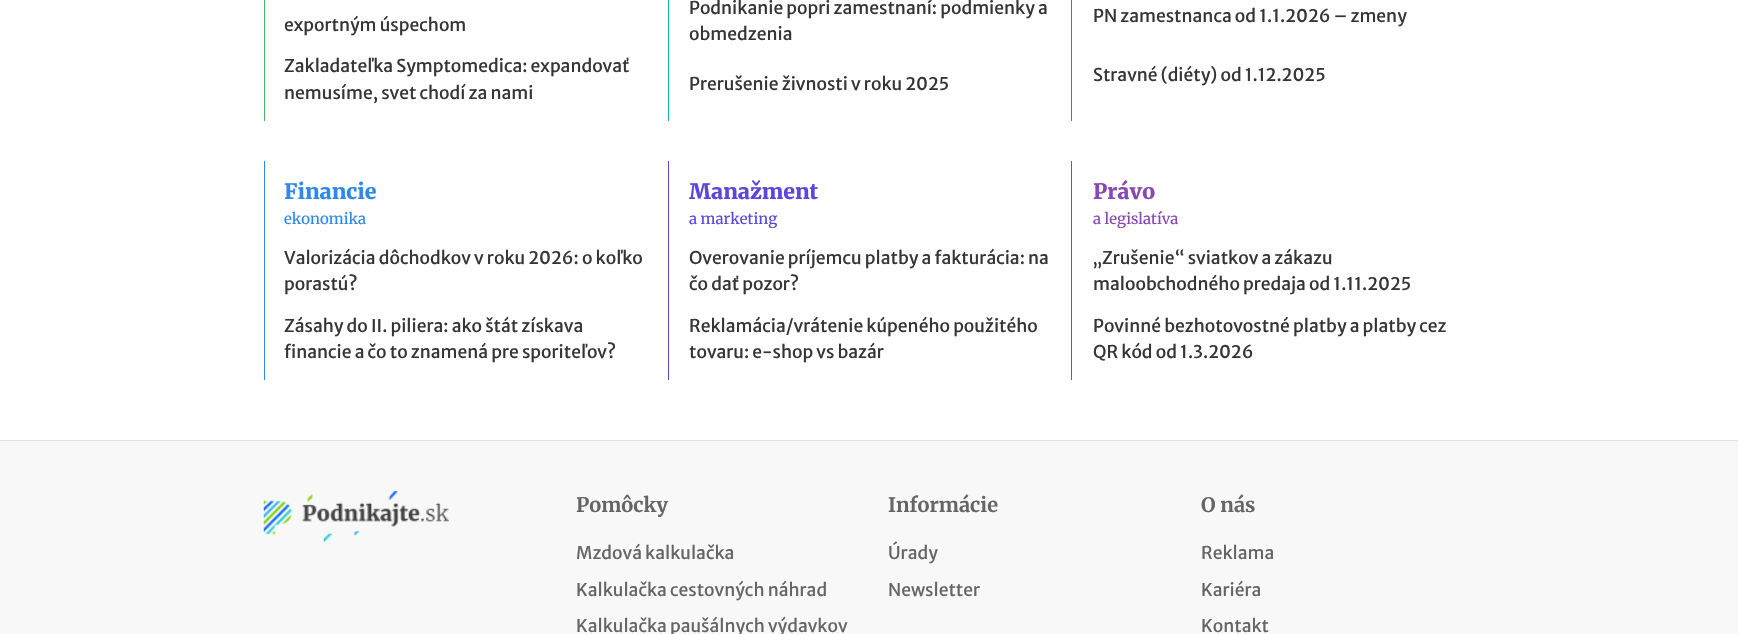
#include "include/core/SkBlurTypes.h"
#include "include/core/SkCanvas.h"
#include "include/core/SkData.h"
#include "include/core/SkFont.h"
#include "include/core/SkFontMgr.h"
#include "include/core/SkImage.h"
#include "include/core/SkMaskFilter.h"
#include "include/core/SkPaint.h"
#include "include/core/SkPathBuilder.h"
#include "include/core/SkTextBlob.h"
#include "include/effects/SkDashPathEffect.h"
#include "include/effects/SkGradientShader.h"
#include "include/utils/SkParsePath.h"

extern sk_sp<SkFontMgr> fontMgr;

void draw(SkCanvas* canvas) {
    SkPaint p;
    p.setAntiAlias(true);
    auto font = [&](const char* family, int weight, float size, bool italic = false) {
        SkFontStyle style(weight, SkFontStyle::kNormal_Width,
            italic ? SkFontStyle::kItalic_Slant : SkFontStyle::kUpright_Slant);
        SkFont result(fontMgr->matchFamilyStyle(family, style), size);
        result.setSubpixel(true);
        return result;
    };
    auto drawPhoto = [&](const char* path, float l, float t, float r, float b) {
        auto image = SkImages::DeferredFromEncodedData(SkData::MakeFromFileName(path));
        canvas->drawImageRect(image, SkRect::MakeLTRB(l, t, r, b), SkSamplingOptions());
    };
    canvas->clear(0xFFFFFFFF);
    p.setColor(0xFF43B967);
    canvas->drawRect(SkRect::MakeLTRB(264, 0, 265, 121), p);
    auto font1 = font("Merriweather Sans", 400, 17.5f);
    p.setColor(0xFF353535);
    {
        const struct { const char* s; float x, y; } items[] = {
            {"exportným úspechom", 284, 31},
            {"Zakladateľka Symptomedica: expandovať", 284, 72},
            {"nemusíme, svet chodí za nami", 284, 99},
        };
        for (auto [s, x, y] : items) {
            canvas->drawString(s, x, y, font1, p);
        }
    }
    p.setColor(0xFF17B2B3);
    canvas->drawRect(SkRect::MakeLTRB(668, 0, 669, 121), p);
    p.setColor(0xFF353535);
    {
        const struct { const char* s; float x, y; } items[] = {
            {"Podnikanie popri zamestnaní: podmienky a", 689, 14},
            {"obmedzenia", 689, 40},
            {"Prerušenie živnosti v roku 2025", 689, 90},
        };
        for (auto [s, x, y] : items) {
            canvas->drawString(s, x, y, font1, p);
        }
    }
    p.setColor(0xFFC54864);
    canvas->drawRect(SkRect::MakeLTRB(1071, 0, 1072, 121), p);
    p.setColor(0xFF353535);
    canvas->drawString("PN zamestnanca od 1.1.2026 – zmeny", 1093, 22, font1, p);
    canvas->drawString("Stravné (diéty) od 1.12.2025", 1093, 81, font1, p);
    p.setColor(0xFF3089E8);
    canvas->drawRect(SkRect::MakeLTRB(264, 161, 265, 380), p);
    auto font2 = font("Merriweather", 900, 21.25f);
    canvas->drawString("Financie", 284, 199, font2, p);
    auto font3 = font("Merriweather", 400, 15);
    canvas->drawString("ekonomika", 284, 224, font3, p);
    p.setColor(0xFF353535);
    {
        const struct { const char* s; float x, y; } items[] = {
            {"Valorizácia dôchodkov v roku 2026: o koľko", 284, 264},
            {"porastú?", 284, 290},
            {"Zásahy do II. piliera: ako štát získava", 284, 332},
            {"financie a čo to znamená pre sporiteľov?", 284, 358},
        };
        for (auto [s, x, y] : items) {
            canvas->drawString(s, x, y, font1, p);
        }
    }
    p.setColor(0xFF5A48DE);
    canvas->drawRect(SkRect::MakeLTRB(668, 161, 669, 380), p);
    canvas->drawString("Manažment", 689, 199, font2, p);
    canvas->drawString("a marketing", 689, 224, font3, p);
    p.setColor(0xFF353535);
    {
        const struct { const char* s; float x, y; } items[] = {
            {"Overovanie príjemcu platby a fakturácia: na", 689, 264},
            {"čo dať pozor?", 689, 290},
            {"Reklamácia/vrátenie kúpeného použitého", 689, 332},
            {"tovaru: e-shop vs bazár", 689, 358},
        };
        for (auto [s, x, y] : items) {
            canvas->drawString(s, x, y, font1, p);
        }
    }
    p.setColor(0xFF8748B5);
    canvas->drawRect(SkRect::MakeLTRB(1071, 161, 1072, 380), p);
    canvas->drawString("Právo", 1093, 199, font2, p);
    canvas->drawString("a legislatíva", 1093, 224, font3, p);
    p.setColor(0xFF353535);
    {
        const struct { const char* s; float x, y; } items[] = {
            {"„Zrušenie“ sviatkov a zákazu", 1093, 264},
            {"maloobchodného predaja od 1.11.2025", 1093, 290},
            {"Povinné bezhotovostné platby a platby cez", 1093, 332},
            {"QR kód od 1.3.2026", 1093, 358},
        };
        for (auto [s, x, y] : items) {
            canvas->drawString(s, x, y, font1, p);
        }
    }
    p.setColor(0xFFF8F8F8);
    canvas->drawRect(SkRect::MakeLTRB(0, 441, 1738, 634), p);
    p.setColor(0xFFDFDFDF);
    canvas->drawRect(SkRect::MakeLTRB(0, 440, 1738, 441), p);
    drawPhoto("media/1.png", 263, 491, 449, 543);
    auto font4 = font("Merriweather", 700, 20);
    p.setColor(0xFF656565);
    canvas->drawString("Pomôcky", 576, 512, font4, p);
    {
        const struct { const char* s; float x, y; } items[] = {
            {"Mzdová kalkulačka", 576, 559},
            {"Kalkulačka cestovných náhrad", 576, 596},
            {"Kalkulačka paušálnych výdavkov", 576, 632},
        };
        for (auto [s, x, y] : items) {
            canvas->drawString(s, x, y, font1, p);
        }
    }
    canvas->drawString("Informácie", 888, 512, font4, p);
    canvas->drawString("Úrady", 888, 559, font1, p);
    canvas->drawString("Newsletter", 888, 596, font1, p);
    canvas->drawString("O nás", 1201, 512, font4, p);
    {
        const struct { const char* s; float x, y; } items[] = {
            {"Reklama", 1201, 559},
            {"Kariéra", 1201, 596},
            {"Kontakt", 1201, 632},
        };
        for (auto [s, x, y] : items) {
            canvas->drawString(s, x, y, font1, p);
        }
    }
}
